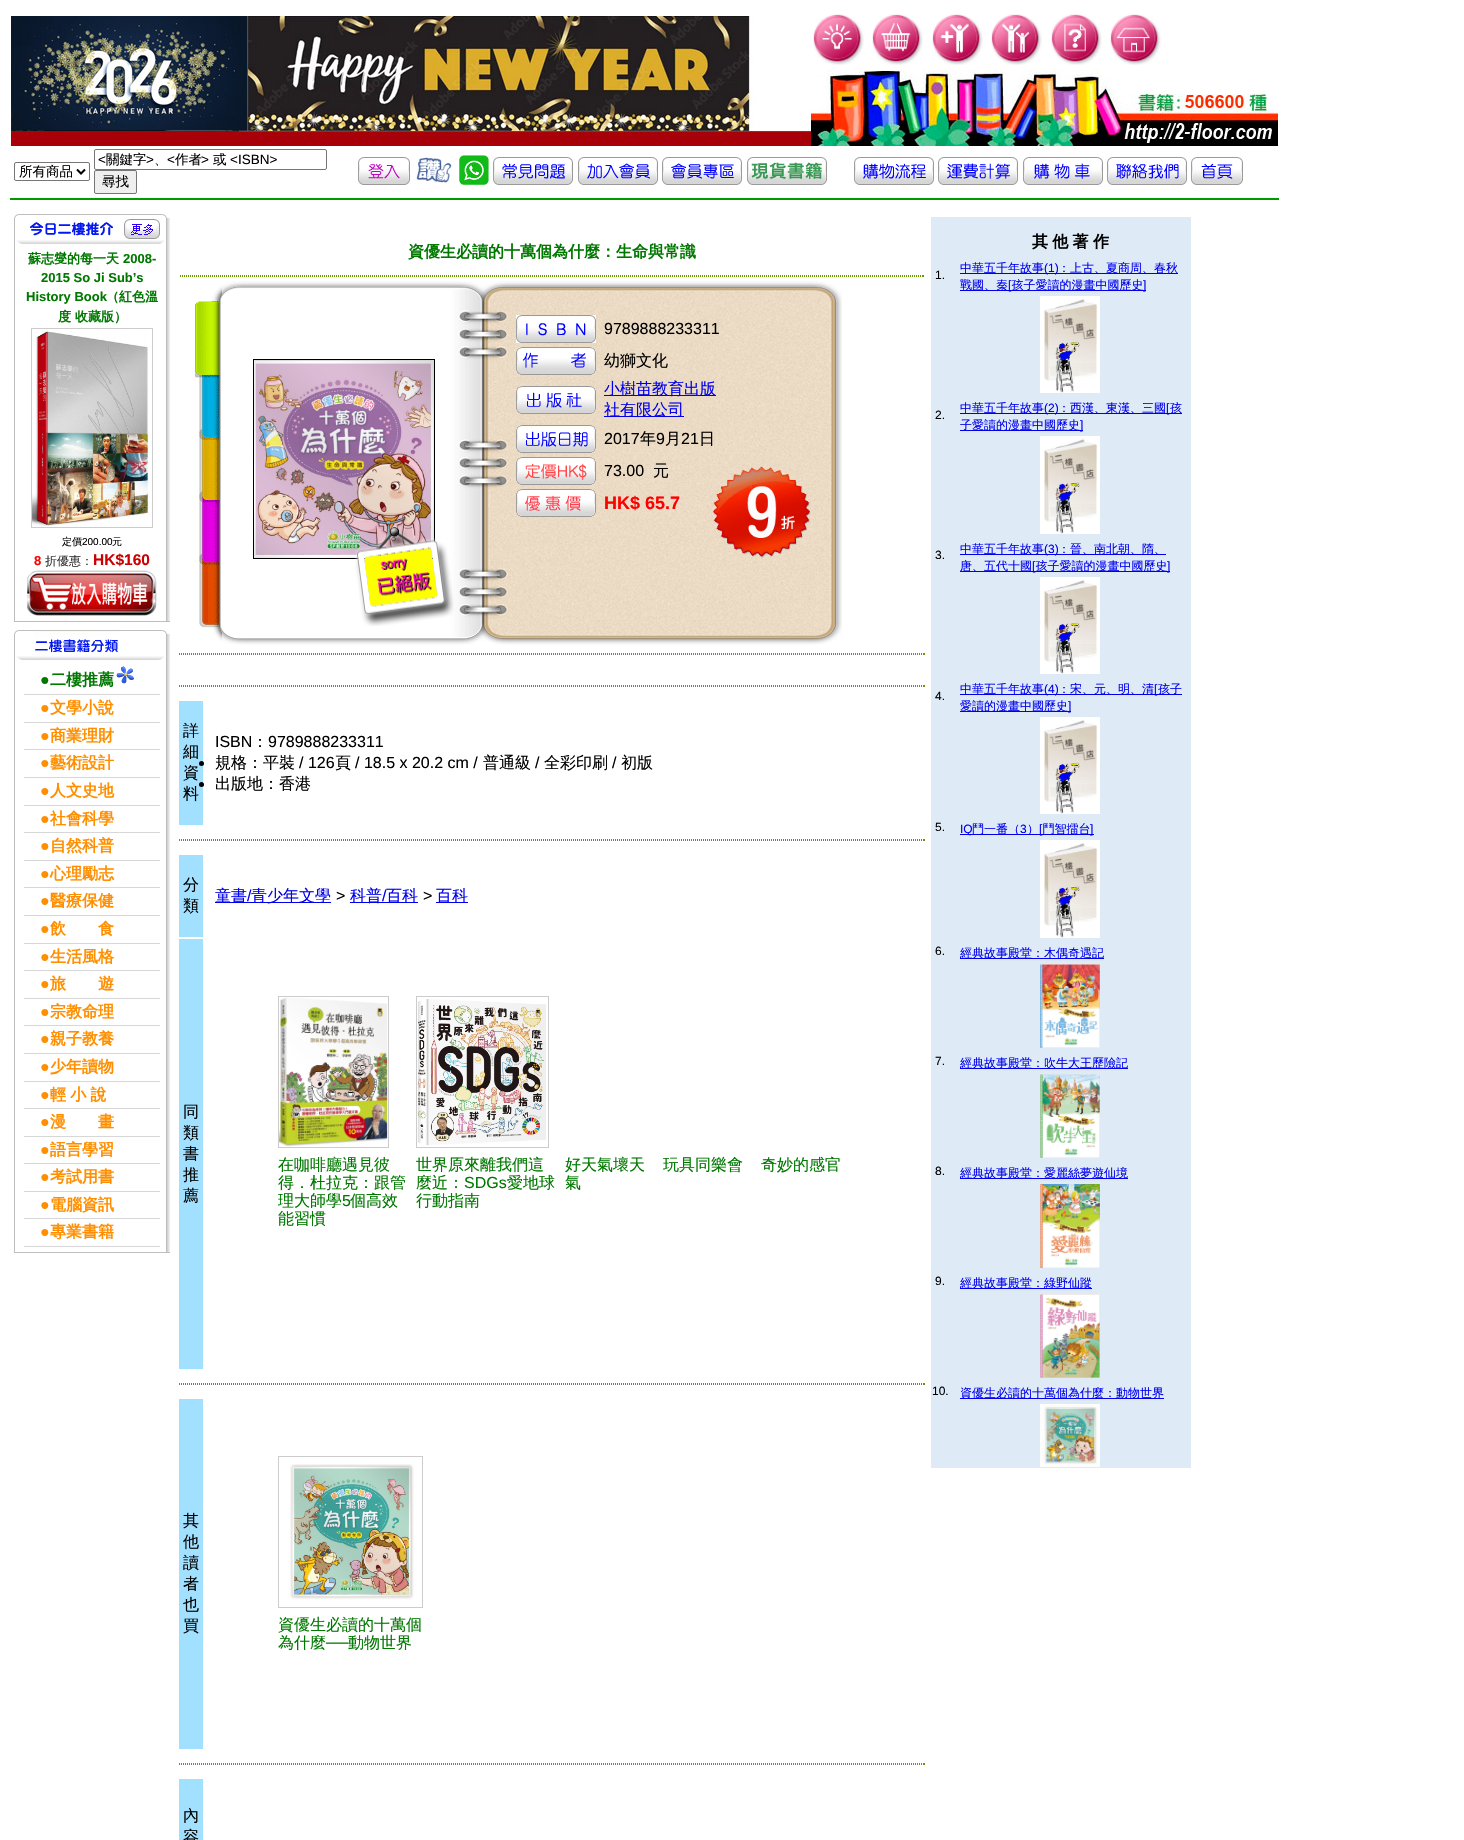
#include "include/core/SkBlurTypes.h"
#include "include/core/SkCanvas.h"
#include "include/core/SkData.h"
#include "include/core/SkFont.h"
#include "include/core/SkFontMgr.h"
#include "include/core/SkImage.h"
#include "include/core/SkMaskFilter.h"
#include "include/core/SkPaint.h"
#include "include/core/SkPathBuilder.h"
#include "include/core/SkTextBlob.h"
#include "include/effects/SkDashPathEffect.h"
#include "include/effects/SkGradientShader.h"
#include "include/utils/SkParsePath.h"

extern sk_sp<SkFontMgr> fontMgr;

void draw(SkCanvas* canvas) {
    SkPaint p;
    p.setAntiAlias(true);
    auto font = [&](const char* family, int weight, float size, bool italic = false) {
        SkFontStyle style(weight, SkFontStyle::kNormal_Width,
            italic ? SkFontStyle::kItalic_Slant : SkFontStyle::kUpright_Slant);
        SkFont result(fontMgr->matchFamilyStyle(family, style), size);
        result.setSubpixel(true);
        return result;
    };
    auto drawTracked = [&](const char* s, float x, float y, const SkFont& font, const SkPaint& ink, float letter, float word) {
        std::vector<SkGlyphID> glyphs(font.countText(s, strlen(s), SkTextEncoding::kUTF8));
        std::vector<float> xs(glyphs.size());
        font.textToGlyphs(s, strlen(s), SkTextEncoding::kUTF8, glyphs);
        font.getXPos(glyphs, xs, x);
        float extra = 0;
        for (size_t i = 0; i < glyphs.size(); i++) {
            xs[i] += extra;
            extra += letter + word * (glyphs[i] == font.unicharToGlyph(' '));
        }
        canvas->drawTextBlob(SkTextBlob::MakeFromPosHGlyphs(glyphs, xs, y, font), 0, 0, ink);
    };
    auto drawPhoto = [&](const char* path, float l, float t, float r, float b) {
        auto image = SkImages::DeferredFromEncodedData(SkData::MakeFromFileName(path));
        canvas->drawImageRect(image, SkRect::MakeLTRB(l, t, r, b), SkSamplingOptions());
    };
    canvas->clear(0xFFFFFFFF);
    drawPhoto("media/1.png", 195, 281, 842, 645);
    p.setColor(0xFF009900);
    canvas->drawRect(SkRect::MakeLTRB(10, 198, 1279, 200), p);
    drawPhoto("media/2.png", 11, 16, 811, 146);
    drawPhoto("media/3.png", 813, 14, 864, 65);
    drawPhoto("media/4.png", 872, 14, 923, 65);
    drawPhoto("media/5.png", 932, 14, 983, 65);
    drawPhoto("media/6.png", 991, 14, 1042, 65);
    drawPhoto("media/7.png", 1051, 14, 1102, 65);
    drawPhoto("media/8.png", 1110, 14, 1161, 65);
    drawPhoto("media/9.png", 811, 70, 1278, 146);
    p.setStyle(SkPaint::kStroke_Style);
    p.setStrokeWidth(1);
    p.setColor(0xFF767676);
    canvas->drawRoundRect(SkRect::MakeLTRB(14.5f, 162.5f, 89.5f, 180.5f), 1.5f, 1.5f, p);
    p.setStrokeWidth(2);
    p.setColor(0xFF000000);
    canvas->drawPath(SkPathBuilder().moveTo(77, 169.5f).lineTo(81, 173.5f).lineTo(85, 169.5f).detach(), p);
    auto font1 = font("WenQuanYi Zen Hei", 500, 13.5f);
    p.setStyle(SkPaint::kFill_Style);
    canvas->drawString("所有商品", 19, 176, font1, p);
    p.setStyle(SkPaint::kStroke_Style);
    p.setStrokeWidth(1);
    p.setColor(0xFF767676);
    canvas->drawRoundRect(SkRect::MakeLTRB(94.5f, 149.5f, 326.5f, 169.5f), 1.5f, 1.5f, p);
    auto font2 = font("Liberation Sans", 400, 13.5f);
    p.setStyle(SkPaint::kFill_Style);
    p.setColor(0xFF000000);
    canvas->drawString("<", 98, 164, font2, p);
    canvas->drawString("關鍵字", 106, 164, font1, p);
    canvas->drawString(">", 146, 164, font2, p);
    canvas->drawString("<", 167, 164, font2, p);
    canvas->drawString("作者", 175, 164, font1, p);
    canvas->drawString(">", 201, 164, font2, p);
    canvas->drawString("或", 213, 164, font1, p);
    canvas->drawString("<ISBN>", 230, 164, font2, p);
    canvas->drawString("、", 154, 164, font1, p);
    p.setColor(0xFFEFEFEF);
    canvas->drawRoundRect(SkRect::MakeLTRB(94.5f, 170.5f, 136.5f, 193.5f), 1.5f, 1.5f, p);
    p.setStyle(SkPaint::kStroke_Style);
    p.setColor(0xFF767676);
    canvas->drawRoundRect(SkRect::MakeLTRB(94.5f, 170.5f, 136.5f, 193.5f), 1.5f, 1.5f, p);
    p.setStyle(SkPaint::kFill_Style);
    p.setColor(0xFF000000);
    canvas->drawString("尋找", 102, 186, font1, p);
    drawPhoto("media/10.png", 358, 157, 410, 185);
    drawPhoto("media/11.png", 416, 157, 452, 183);
    drawPhoto("media/12.png", 459, 155, 489, 185);
    drawPhoto("media/13.png", 493, 157, 573, 185);
    drawPhoto("media/14.png", 578, 157, 658, 185);
    drawPhoto("media/15.png", 662, 157, 742, 185);
    drawPhoto("media/16.png", 747, 157, 827, 185);
    drawPhoto("media/17.png", 854, 157, 934, 185);
    drawPhoto("media/18.png", 938, 157, 1018, 185);
    drawPhoto("media/19.png", 1023, 157, 1103, 185);
    drawPhoto("media/20.png", 1107, 157, 1187, 185);
    drawPhoto("media/21.png", 1191, 157, 1243, 185);
    drawPhoto("media/22.png", 14, 214, 170, 244);
    drawPhoto("media/23.png", 30, 222, 113, 236);
    drawPhoto("media/24.png", 124, 219, 160, 239);
    drawPhoto("media/25.png", 14, 244, 170, 621);
    p.setColor(0xFFBEBEBE);
    canvas->drawRect(SkRect::MakeLTRB(14, 621, 170, 622), p);
    auto font3 = font("WenQuanYi Zen Hei", 700, 13);
    p.setColor(0xFF007800);
    canvas->drawString("蘇志燮的每一天", 28, 263, font3, p);
    auto font4 = font("Liberation Sans", 700, 13);
    {
        const struct { const char* s; float x, y; } items[] = {
            {"2008-", 123, 263},
            {"2015 So Ji Sub’s", 41, 282},
            {"History Book", 26, 301},
        };
        for (auto [s, x, y] : items) {
            canvas->drawString(s, x, y, font4, p);
        }
    }
    canvas->drawString("（紅色溫", 106, 301, font3, p);
    canvas->drawString("度 收藏版）", 58, 321, font3, p);
    p.setStyle(SkPaint::kStroke_Style);
    p.setColor(0xFFCCCCCC);
    canvas->drawRect(SkRect::MakeLTRB(31.5f, 328.5f, 152.5f, 527.5f), p);
    drawPhoto("media/26.png", 32, 331, 149, 527);
    auto font5 = font("WenQuanYi Zen Hei", 500, 10);
    p.setStyle(SkPaint::kFill_Style);
    p.setColor(0xFF000000);
    canvas->drawString("定價", 62, 545, font5, p);
    auto font6 = font("Liberation Sans", 400, 10);
    canvas->drawString("200.00", 82, 545, font6, p);
    canvas->drawString("元", 112, 545, font5, p);
    p.setColor(0xFFFF0000);
    canvas->drawString("8", 34, 565, font4, p);
    auto font7 = font("WenQuanYi Zen Hei", 500, 12);
    p.setColor(0xFF333333);
    canvas->drawString("折優惠：", 45, 565, font7, p);
    auto font8 = font("Liberation Sans", 700, 15.5f);
    p.setColor(0xFFCC0000);
    canvas->drawString("HK$160", 93, 565, font8, p);
    drawPhoto("media/27.png", 27, 570, 157, 616);
    drawPhoto("media/28.png", 14, 630, 170, 660);
    drawPhoto("media/29.png", 35, 630, 118, 660);
    drawPhoto("media/30.png", 14, 660, 170, 1252);
    p.setColor(0xFFBEBEBE);
    canvas->drawRect(SkRect::MakeLTRB(14, 1252, 170, 1253), p);
    p.setColor(0xFFD7D7D7);
    canvas->drawRect(SkRect::MakeLTRB(24, 694, 160, 695), p);
    auto font9 = font("Liberation Sans", 700, 16);
    p.setColor(0xFF007800);
    canvas->drawString("●", 40, 685, font9, p);
    auto font10 = font("WenQuanYi Zen Hei", 700, 16);
    canvas->drawString("二樓推薦", 50, 685, font10, p);
    drawPhoto("media/31.png", 116, 666, 134, 684);
    p.setColor(0xFFD7D7D7);
    canvas->drawRect(SkRect::MakeLTRB(24, 722, 160, 723), p);
    p.setColor(0xFFFF8F00);
    canvas->drawString("●", 40, 713, font9, p);
    canvas->drawString("文學小說", 50, 713, font10, p);
    p.setColor(0xFFD7D7D7);
    canvas->drawRect(SkRect::MakeLTRB(24, 749, 160, 750), p);
    p.setColor(0xFFFF8F00);
    canvas->drawString("●", 40, 741, font9, p);
    canvas->drawString("商業理財", 50, 741, font10, p);
    p.setColor(0xFFD7D7D7);
    canvas->drawRect(SkRect::MakeLTRB(24, 777, 160, 778), p);
    p.setColor(0xFFFF8F00);
    canvas->drawString("●", 40, 768, font9, p);
    canvas->drawString("藝術設計", 50, 768, font10, p);
    p.setColor(0xFFD7D7D7);
    canvas->drawRect(SkRect::MakeLTRB(24, 805, 160, 806), p);
    p.setColor(0xFFFF8F00);
    canvas->drawString("●", 40, 796, font9, p);
    canvas->drawString("人文史地", 50, 796, font10, p);
    p.setColor(0xFFD7D7D7);
    canvas->drawRect(SkRect::MakeLTRB(24, 832, 160, 833), p);
    p.setColor(0xFFFF8F00);
    canvas->drawString("●", 40, 824, font9, p);
    canvas->drawString("社會科學", 50, 824, font10, p);
    p.setColor(0xFFD7D7D7);
    canvas->drawRect(SkRect::MakeLTRB(24, 860, 160, 861), p);
    p.setColor(0xFFFF8F00);
    canvas->drawString("●", 40, 851, font9, p);
    canvas->drawString("自然科普", 50, 851, font10, p);
    p.setColor(0xFFD7D7D7);
    canvas->drawRect(SkRect::MakeLTRB(24, 887, 160, 888), p);
    p.setColor(0xFFFF8F00);
    canvas->drawString("●", 40, 879, font9, p);
    canvas->drawString("心理勵志", 50, 879, font10, p);
    p.setColor(0xFFD7D7D7);
    canvas->drawRect(SkRect::MakeLTRB(24, 915, 160, 916), p);
    p.setColor(0xFFFF8F00);
    canvas->drawString("●", 40, 906, font9, p);
    canvas->drawString("醫療保健", 50, 906, font10, p);
    p.setColor(0xFFD7D7D7);
    canvas->drawRect(SkRect::MakeLTRB(24, 943, 160, 944), p);
    p.setColor(0xFFFF8F00);
    canvas->drawString("●", 40, 934, font9, p);
    canvas->drawString("飲　　食", 50, 934, font10, p);
    p.setColor(0xFFD7D7D7);
    canvas->drawRect(SkRect::MakeLTRB(24, 970, 160, 971), p);
    p.setColor(0xFFFF8F00);
    canvas->drawString("●", 40, 962, font9, p);
    canvas->drawString("生活風格", 50, 962, font10, p);
    p.setColor(0xFFD7D7D7);
    canvas->drawRect(SkRect::MakeLTRB(24, 998, 160, 999), p);
    p.setColor(0xFFFF8F00);
    canvas->drawString("●", 40, 989, font9, p);
    canvas->drawString("旅　　遊", 50, 989, font10, p);
    p.setColor(0xFFD7D7D7);
    canvas->drawRect(SkRect::MakeLTRB(24, 1025, 160, 1026), p);
    p.setColor(0xFFFF8F00);
    canvas->drawString("●", 40, 1017, font9, p);
    canvas->drawString("宗教命理", 50, 1017, font10, p);
    p.setColor(0xFFD7D7D7);
    canvas->drawRect(SkRect::MakeLTRB(24, 1053, 160, 1054), p);
    p.setColor(0xFFFF8F00);
    canvas->drawString("●", 40, 1044, font9, p);
    canvas->drawString("親子教養", 50, 1044, font10, p);
    p.setColor(0xFFD7D7D7);
    canvas->drawRect(SkRect::MakeLTRB(24, 1081, 160, 1082), p);
    p.setColor(0xFFFF8F00);
    canvas->drawString("●", 40, 1072, font9, p);
    canvas->drawString("少年讀物", 50, 1072, font10, p);
    p.setColor(0xFFD7D7D7);
    canvas->drawRect(SkRect::MakeLTRB(24, 1108, 160, 1109), p);
    p.setColor(0xFFFF8F00);
    canvas->drawString("●", 40, 1100, font9, p);
    drawTracked("輕 小 說", 50, 1100, font10, p, 0, -0.5f);
    p.setColor(0xFFD7D7D7);
    canvas->drawRect(SkRect::MakeLTRB(24, 1136, 160, 1137), p);
    p.setColor(0xFFFF8F00);
    canvas->drawString("●", 40, 1127, font9, p);
    canvas->drawString("漫　　畫", 50, 1127, font10, p);
    p.setColor(0xFFD7D7D7);
    canvas->drawRect(SkRect::MakeLTRB(24, 1163, 160, 1164), p);
    p.setColor(0xFFFF8F00);
    canvas->drawString("●", 40, 1155, font9, p);
    canvas->drawString("語言學習", 50, 1155, font10, p);
    p.setColor(0xFFD7D7D7);
    canvas->drawRect(SkRect::MakeLTRB(24, 1191, 160, 1192), p);
    p.setColor(0xFFFF8F00);
    canvas->drawString("●", 40, 1182, font9, p);
    canvas->drawString("考試用書", 50, 1182, font10, p);
    p.setColor(0xFFD7D7D7);
    canvas->drawRect(SkRect::MakeLTRB(24, 1218, 160, 1219), p);
    p.setColor(0xFFFF8F00);
    canvas->drawString("●", 40, 1210, font9, p);
    canvas->drawString("電腦資訊", 50, 1210, font10, p);
    p.setColor(0xFFD7D7D7);
    canvas->drawRect(SkRect::MakeLTRB(24, 1246, 160, 1247), p);
    p.setColor(0xFFFF8F00);
    canvas->drawString("●", 40, 1237, font9, p);
    canvas->drawString("專業書籍", 50, 1237, font10, p);
    p.setColor(0xFF007800);
    canvas->drawString("資優生必讀的十萬個為什麼：生命與常識", 408, 257, font10, p);
    p.setStyle(SkPaint::kStroke_Style);
    p.setColor(0xFF669900);
    p.setPathEffect(SkDashPathEffect::Make({{1, 1}}, 0));
    canvas->drawPath(SkPathBuilder().moveTo(180, 275.5f).lineTo(924, 275.5f).detach(), p);
    p.setPathEffect(nullptr);
    p.setStyle(SkPaint::kFill_Style);
    canvas->drawRect(SkRect::MakeLTRB(923, 275, 924, 277), p);
    p.setStyle(SkPaint::kStroke_Style);
    p.setPathEffect(SkDashPathEffect::Make({{1, 1}}, 0));
    canvas->drawPath(SkPathBuilder().moveTo(180, 276.5f).lineTo(924, 276.5f).detach(), p);
    p.setPathEffect(nullptr);
    p.setColor(0xFF000000);
    canvas->drawRect(SkRect::MakeLTRB(253.5f, 359.5f, 434.5f, 558.5f), p);
    drawPhoto("media/32.png", 254, 360, 434, 558);
    drawPhoto("media/33.png", 516, 315, 596, 343);
    auto font11 = font("Liberation Sans", 400, 16);
    p.setStyle(SkPaint::kFill_Style);
    canvas->drawString("9789888233311", 604, 334, font11, p);
    drawPhoto("media/34.png", 516, 347, 596, 375);
    auto font12 = font("WenQuanYi Zen Hei", 500, 16);
    canvas->drawString("幼獅文化", 604, 366, font12, p);
    drawPhoto("media/35.png", 516, 386, 596, 414);
    p.setColor(0xFF0000EE);
    canvas->drawRect(SkRect::MakeLTRB(604, 395, 716, 396), p);
    canvas->drawString("小樹苗教育出版", 604, 394, font12, p);
    canvas->drawRect(SkRect::MakeLTRB(604, 416, 684, 417), p);
    canvas->drawString("社有限公司", 604, 415, font12, p);
    drawPhoto("media/36.png", 516, 425, 596, 453);
    p.setColor(0xFF000000);
    canvas->drawString("2017", 604, 444, font11, p);
    canvas->drawString("年", 640, 444, font12, p);
    canvas->drawString("9", 656, 444, font11, p);
    canvas->drawString("月", 665, 444, font12, p);
    canvas->drawString("21", 681, 444, font11, p);
    canvas->drawString("日", 699, 444, font12, p);
    drawPhoto("media/37.png", 516, 457, 596, 485);
    canvas->drawString("73.00", 604, 476, font11, p);
    canvas->drawString("元", 653, 476, font12, p);
    drawPhoto("media/38.png", 516, 489, 596, 517);
    auto font13 = font("Liberation Sans", 700, 18);
    p.setColor(0xFFFF0000);
    canvas->drawString("HK$ 65.7", 604, 509, font13, p);
    p.setStyle(SkPaint::kStroke_Style);
    p.setColor(0xFF669900);
    p.setPathEffect(SkDashPathEffect::Make({{1, 1}}, 0));
    canvas->drawPath(SkPathBuilder().moveTo(179, 653.5f).lineTo(925, 653.5f).detach(), p);
    p.setPathEffect(nullptr);
    p.setStyle(SkPaint::kFill_Style);
    canvas->drawRect(SkRect::MakeLTRB(924, 653, 925, 655), p);
    p.setStyle(SkPaint::kStroke_Style);
    p.setPathEffect(SkDashPathEffect::Make({{1, 1}}, 0));
    canvas->drawPath(SkPathBuilder().moveTo(179, 654.5f).lineTo(925, 654.5f).detach(), p);
    p.setPathEffect(nullptr);
    p.setPathEffect(SkDashPathEffect::Make({{1, 1}}, 0));
    canvas->drawPath(SkPathBuilder().moveTo(179, 685.5f).lineTo(925, 685.5f).detach(), p);
    p.setPathEffect(nullptr);
    p.setStyle(SkPaint::kFill_Style);
    canvas->drawRect(SkRect::MakeLTRB(924, 685, 925, 687), p);
    p.setStyle(SkPaint::kStroke_Style);
    p.setPathEffect(SkDashPathEffect::Make({{1, 1}}, 0));
    canvas->drawPath(SkPathBuilder().moveTo(179, 686.5f).lineTo(925, 686.5f).detach(), p);
    p.setPathEffect(nullptr);
    p.setStyle(SkPaint::kFill_Style);
    p.setColor(0xFFA2E0FF);
    canvas->drawRect(SkRect::MakeLTRB(179, 701, 203, 825), p);
    p.setColor(0xFF000000);
    {
        const struct { const char* s; float x, y; } items[] = {
            {"詳", 183, 736},
            {"細", 183, 757},
            {"資", 183, 778},
            {"料", 183, 799},
        };
        for (auto [s, x, y] : items) {
            canvas->drawString(s, x, y, font12, p);
        }
    }
    canvas->drawString("ISBN", 215, 747, font11, p);
    canvas->drawString("：", 252, 747, font12, p);
    canvas->drawString("9789888233311", 268, 747, font11, p);
    canvas->drawCircle(201.5f, 763.5f, 2.5f, p);
    canvas->drawString("規格：平裝", 215, 768, font12, p);
    canvas->drawString("/ 126", 299, 768, font11, p);
    canvas->drawString("頁", 335, 768, font12, p);
    canvas->drawString("/ 18.5 x 20.2 cm /", 355, 768, font11, p);
    canvas->drawString("普通級", 483, 768, font12, p);
    canvas->drawString("/", 535, 768, font11, p);
    canvas->drawString("全彩印刷", 544, 768, font12, p);
    canvas->drawString("/", 612, 768, font11, p);
    canvas->drawString("初版", 621, 768, font12, p);
    canvas->drawCircle(201.5f, 784.5f, 2.5f, p);
    canvas->drawString("出版地：香港", 215, 789, font12, p);
    p.setStyle(SkPaint::kStroke_Style);
    p.setColor(0xFF669900);
    p.setPathEffect(SkDashPathEffect::Make({{1, 1}}, 0));
    canvas->drawPath(SkPathBuilder().moveTo(179, 839.5f).lineTo(925, 839.5f).detach(), p);
    p.setPathEffect(nullptr);
    p.setStyle(SkPaint::kFill_Style);
    canvas->drawRect(SkRect::MakeLTRB(924, 839, 925, 841), p);
    p.setStyle(SkPaint::kStroke_Style);
    p.setPathEffect(SkDashPathEffect::Make({{1, 1}}, 0));
    canvas->drawPath(SkPathBuilder().moveTo(179, 840.5f).lineTo(925, 840.5f).detach(), p);
    p.setPathEffect(nullptr);
    p.setStyle(SkPaint::kFill_Style);
    p.setColor(0xFFA2E0FF);
    canvas->drawRect(SkRect::MakeLTRB(179, 855, 203, 937), p);
    p.setColor(0xFF000000);
    canvas->drawString("分", 183, 890, font12, p);
    canvas->drawString("類", 183, 911, font12, p);
    p.setColor(0xFF0000EE);
    canvas->drawRect(SkRect::MakeLTRB(215, 902, 331, 903), p);
    canvas->drawString("童書", 215, 901, font12, p);
    canvas->drawString("/", 247, 901, font11, p);
    canvas->drawString("青少年文學", 251, 901, font12, p);
    p.setColor(0xFF000000);
    canvas->drawString(">", 336, 901, font11, p);
    p.setColor(0xFF0000EE);
    canvas->drawRect(SkRect::MakeLTRB(350, 902, 418, 903), p);
    canvas->drawString("科普", 350, 901, font12, p);
    canvas->drawString("/", 382, 901, font11, p);
    canvas->drawString("百科", 386, 901, font12, p);
    p.setColor(0xFF000000);
    canvas->drawString(">", 423, 901, font11, p);
    p.setColor(0xFF0000EE);
    canvas->drawRect(SkRect::MakeLTRB(436, 902, 468, 903), p);
    canvas->drawString("百科", 436, 901, font12, p);
    p.setColor(0xFFA2E0FF);
    canvas->drawRect(SkRect::MakeLTRB(179, 939, 203, 1369), p);
    p.setColor(0xFF000000);
    {
        const struct { const char* s; float x, y; } items[] = {
            {"同", 183, 1117},
            {"類", 183, 1138},
            {"書", 183, 1159},
            {"推", 183, 1180},
            {"薦", 183, 1201},
        };
        for (auto [s, x, y] : items) {
            canvas->drawString(s, x, y, font12, p);
        }
    }
    p.setStyle(SkPaint::kStroke_Style);
    p.setColor(0xFFCCCCCC);
    canvas->drawRect(SkRect::MakeLTRB(278.5f, 996.5f, 388.5f, 1147.5f), p);
    drawPhoto("media/39.png", 279, 997, 388, 1147);
    p.setStyle(SkPaint::kFill_Style);
    p.setColor(0xFF007800);
    {
        const struct { const char* s; float x, y; } items[] = {
            {"在咖啡廳遇見彼", 278, 1170},
            {"得．杜拉克：跟管", 278, 1188},
            {"理大師學", 278, 1206},
        };
        for (auto [s, x, y] : items) {
            canvas->drawString(s, x, y, font12, p);
        }
    }
    canvas->drawString("5", 342, 1206, font11, p);
    canvas->drawString("個高效", 350, 1206, font12, p);
    canvas->drawString("能習慣", 278, 1224, font12, p);
    p.setStyle(SkPaint::kStroke_Style);
    p.setColor(0xFFCCCCCC);
    canvas->drawRect(SkRect::MakeLTRB(416.5f, 996.5f, 548.5f, 1147.5f), p);
    drawPhoto("media/40.png", 417, 999, 546, 1146);
    p.setStyle(SkPaint::kFill_Style);
    p.setColor(0xFF007800);
    canvas->drawString("世界原來離我們這", 416, 1170, font12, p);
    canvas->drawString("麼近：", 416, 1188, font12, p);
    canvas->drawString("SDGs", 464, 1188, font11, p);
    {
        const struct { const char* s; float x, y; } items[] = {
            {"愛地球", 507, 1188},
            {"行動指南", 416, 1206},
            {"好天氣壞天", 565, 1170},
            {"氣", 565, 1188},
            {"玩具同樂會", 663, 1170},
            {"奇妙的感官", 761, 1170},
        };
        for (auto [s, x, y] : items) {
            canvas->drawString(s, x, y, font12, p);
        }
    }
    p.setStyle(SkPaint::kStroke_Style);
    p.setColor(0xFF669900);
    p.setPathEffect(SkDashPathEffect::Make({{1, 1}}, 0));
    canvas->drawPath(SkPathBuilder().moveTo(179, 1383.5f).lineTo(925, 1383.5f).detach(), p);
    p.setPathEffect(nullptr);
    p.setStyle(SkPaint::kFill_Style);
    canvas->drawRect(SkRect::MakeLTRB(924, 1383, 925, 1385), p);
    p.setStyle(SkPaint::kStroke_Style);
    p.setPathEffect(SkDashPathEffect::Make({{1, 1}}, 0));
    canvas->drawPath(SkPathBuilder().moveTo(179, 1384.5f).lineTo(925, 1384.5f).detach(), p);
    p.setPathEffect(nullptr);
    p.setStyle(SkPaint::kFill_Style);
    p.setColor(0xFFA2E0FF);
    canvas->drawRect(SkRect::MakeLTRB(179, 1399, 203, 1749), p);
    p.setColor(0xFF000000);
    {
        const struct { const char* s; float x, y; } items[] = {
            {"其", 183, 1526},
            {"他", 183, 1547},
            {"讀", 183, 1568},
            {"者", 183, 1589},
            {"也", 183, 1610},
            {"買", 183, 1631},
        };
        for (auto [s, x, y] : items) {
            canvas->drawString(s, x, y, font12, p);
        }
    }
    p.setStyle(SkPaint::kStroke_Style);
    p.setColor(0xFFCCCCCC);
    canvas->drawRect(SkRect::MakeLTRB(278.5f, 1456.5f, 422.5f, 1607.5f), p);
    drawPhoto("media/41.png", 290, 1464, 414, 1600);
    p.setStyle(SkPaint::kFill_Style);
    p.setColor(0xFF007800);
    canvas->drawString("資優生必讀的十萬個", 278, 1630, font12, p);
    canvas->drawString("為什麼", 278, 1648, font12, p);
    canvas->drawString("──", 326, 1648, font11, p);
    canvas->drawString("動物世界", 348, 1648, font12, p);
    p.setStyle(SkPaint::kStroke_Style);
    p.setColor(0xFF669900);
    p.setPathEffect(SkDashPathEffect::Make({{1, 1}}, 0));
    canvas->drawPath(SkPathBuilder().moveTo(179, 1763.5f).lineTo(925, 1763.5f).detach(), p);
    p.setPathEffect(nullptr);
    p.setStyle(SkPaint::kFill_Style);
    canvas->drawRect(SkRect::MakeLTRB(924, 1763, 925, 1765), p);
    p.setStyle(SkPaint::kStroke_Style);
    p.setPathEffect(SkDashPathEffect::Make({{1, 1}}, 0));
    canvas->drawPath(SkPathBuilder().moveTo(179, 1764.5f).lineTo(925, 1764.5f).detach(), p);
    p.setPathEffect(nullptr);
    p.setStyle(SkPaint::kFill_Style);
    p.setColor(0xFFA2E0FF);
    canvas->drawRect(SkRect::MakeLTRB(179, 1779, 203, 1840), p);
    p.setColor(0xFF000000);
    canvas->drawString("內", 183, 1821, font12, p);
    canvas->drawString("容", 183, 1842, font12, p);
    p.setColor(0xFFDEEBF7);
    canvas->drawRect(SkRect::MakeLTRB(931, 217, 1191, 1468), p);
    p.setColor(0xFF000000);
    drawTracked("其 他 著 作", 1032, 247, font10, p, 0, -0.5f);
    auto font14 = font("Liberation Sans", 400, 12);
    canvas->drawString("1.", 935, 279, font14, p);
    p.setColor(0xFF0000EE);
    canvas->drawRect(SkRect::MakeLTRB(960, 273, 1178, 274), p);
    canvas->drawString("中華五千年故事", 960, 272, font7, p);
    canvas->drawString("(1)", 1044, 272, font14, p);
    canvas->drawString("：上古、夏商周、春秋", 1058, 272, font7, p);
    canvas->drawRect(SkRect::MakeLTRB(960, 290, 1146, 291), p);
    canvas->drawString("戰國、秦 孩子愛讀的漫畫中國歷史", 960, 289, font7, p);
    canvas->drawString("[", 1008, 289, font14, p);
    canvas->drawString("]", 1143, 289, font14, p);
    drawPhoto("media/42.png", 1040, 296, 1100, 393);
    p.setColor(0xFF000000);
    canvas->drawString("2.", 935, 419, font14, p);
    p.setColor(0xFF0000EE);
    canvas->drawRect(SkRect::MakeLTRB(960, 413, 1182, 414), p);
    canvas->drawString("中華五千年故事", 960, 412, font7, p);
    canvas->drawString("(2)", 1044, 412, font14, p);
    canvas->drawString("：西漢、東漢、三國", 1058, 412, font7, p);
    canvas->drawString("[", 1166, 412, font14, p);
    canvas->drawString("孩", 1170, 412, font7, p);
    canvas->drawRect(SkRect::MakeLTRB(960, 430, 1083, 431), p);
    canvas->drawString("子愛讀的漫畫中國歷史", 960, 429, font7, p);
    canvas->drawString("]", 1080, 429, font14, p);
    drawPhoto("media/43.png", 1040, 436, 1100, 534);
    p.setColor(0xFF000000);
    canvas->drawString("3.", 935, 559, font14, p);
    p.setColor(0xFF0000EE);
    canvas->drawRect(SkRect::MakeLTRB(960, 554, 1166, 555), p);
    canvas->drawString("中華五千年故事", 960, 553, font7, p);
    canvas->drawString("(3)", 1044, 553, font14, p);
    canvas->drawString("：晉、南北朝、隋、", 1058, 553, font7, p);
    canvas->drawRect(SkRect::MakeLTRB(960, 571, 1170, 572), p);
    canvas->drawString("唐、五代十國 孩子愛讀的漫畫中國歷史", 960, 570, font7, p);
    canvas->drawString("[", 1032, 570, font14, p);
    canvas->drawString("]", 1167, 570, font14, p);
    drawPhoto("media/44.png", 1040, 577, 1100, 674);
    p.setColor(0xFF000000);
    canvas->drawString("4.", 935, 700, font14, p);
    p.setColor(0xFF0000EE);
    canvas->drawRect(SkRect::MakeLTRB(960, 694, 1182, 695), p);
    canvas->drawString("中華五千年故事", 960, 693, font7, p);
    canvas->drawString("(4)", 1044, 693, font14, p);
    canvas->drawString("：宋、元、明、清", 1058, 693, font7, p);
    canvas->drawString("[", 1154, 693, font14, p);
    canvas->drawString("孩子", 1158, 693, font7, p);
    canvas->drawRect(SkRect::MakeLTRB(960, 711, 1071, 712), p);
    canvas->drawString("愛讀的漫畫中國歷史", 960, 710, font7, p);
    canvas->drawString("]", 1068, 710, font14, p);
    drawPhoto("media/42.png", 1040, 717, 1100, 814);
    p.setColor(0xFF000000);
    canvas->drawString("5.", 935, 831, font14, p);
    p.setColor(0xFF0000EE);
    canvas->drawRect(SkRect::MakeLTRB(960, 834, 1094, 835), p);
    canvas->drawString("IQ", 960, 833, font14, p);
    canvas->drawString("鬥一番（", 972, 833, font7, p);
    canvas->drawString("3", 1020, 833, font14, p);
    canvas->drawString("） 鬥智擂台", 1027, 833, font7, p);
    canvas->drawString("[", 1039, 833, font14, p);
    canvas->drawString("]", 1090, 833, font14, p);
    drawPhoto("media/45.png", 1040, 840, 1100, 938);
    p.setColor(0xFF000000);
    canvas->drawString("6.", 935, 955, font14, p);
    p.setColor(0xFF0000EE);
    canvas->drawRect(SkRect::MakeLTRB(960, 958, 1104, 959), p);
    canvas->drawString("經典故事殿堂：木偶奇遇記", 960, 957, font7, p);
    drawPhoto("media/46.png", 1040, 964, 1100, 1048);
    p.setColor(0xFF000000);
    canvas->drawString("7.", 935, 1065, font14, p);
    p.setColor(0xFF0000EE);
    canvas->drawRect(SkRect::MakeLTRB(960, 1068, 1128, 1069), p);
    canvas->drawString("經典故事殿堂：吹牛大王歷險記", 960, 1067, font7, p);
    drawPhoto("media/47.png", 1040, 1074, 1100, 1158);
    p.setColor(0xFF000000);
    canvas->drawString("8.", 935, 1175, font14, p);
    p.setColor(0xFF0000EE);
    canvas->drawRect(SkRect::MakeLTRB(960, 1178, 1128, 1179), p);
    canvas->drawString("經典故事殿堂：愛麗絲夢遊仙境", 960, 1177, font7, p);
    drawPhoto("media/48.png", 1040, 1184, 1100, 1268);
    p.setColor(0xFF000000);
    canvas->drawString("9.", 935, 1285, font14, p);
    p.setColor(0xFF0000EE);
    canvas->drawRect(SkRect::MakeLTRB(960, 1288, 1092, 1289), p);
    canvas->drawString("經典故事殿堂：綠野仙蹤", 960, 1287, font7, p);
    drawPhoto("media/49.png", 1040, 1294, 1100, 1378);
    p.setColor(0xFF000000);
    canvas->drawString("10.", 932, 1395, font14, p);
    p.setColor(0xFF0000EE);
    canvas->drawRect(SkRect::MakeLTRB(960, 1398, 1164, 1399), p);
    canvas->drawString("資優生必讀的十萬個為什麼：動物世界", 960, 1397, font7, p);
    drawPhoto("media/50.png", 1040, 1404, 1100, 1467);
    drawPhoto("media/51.png", 713, 466, 811, 558);
    drawPhoto("media/52.png", 354, 525, 454, 626);
}
